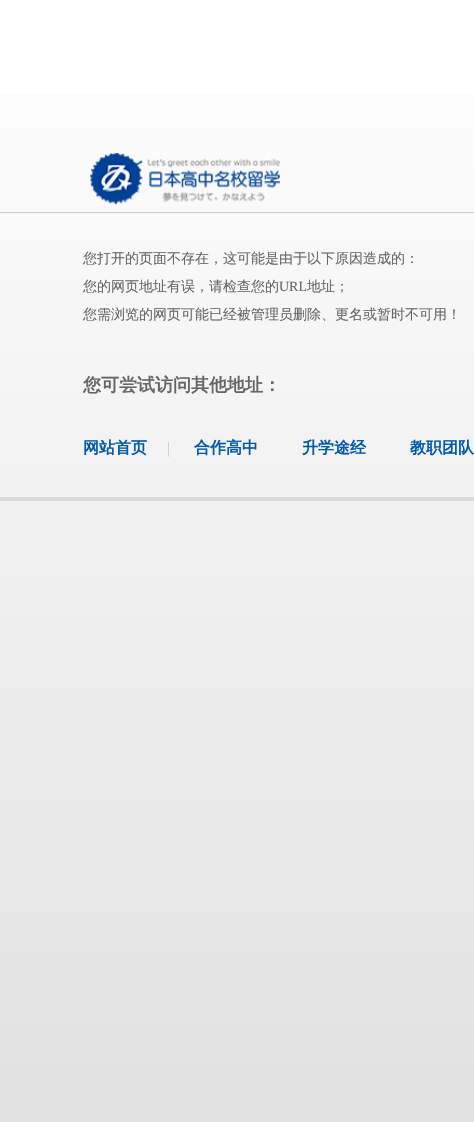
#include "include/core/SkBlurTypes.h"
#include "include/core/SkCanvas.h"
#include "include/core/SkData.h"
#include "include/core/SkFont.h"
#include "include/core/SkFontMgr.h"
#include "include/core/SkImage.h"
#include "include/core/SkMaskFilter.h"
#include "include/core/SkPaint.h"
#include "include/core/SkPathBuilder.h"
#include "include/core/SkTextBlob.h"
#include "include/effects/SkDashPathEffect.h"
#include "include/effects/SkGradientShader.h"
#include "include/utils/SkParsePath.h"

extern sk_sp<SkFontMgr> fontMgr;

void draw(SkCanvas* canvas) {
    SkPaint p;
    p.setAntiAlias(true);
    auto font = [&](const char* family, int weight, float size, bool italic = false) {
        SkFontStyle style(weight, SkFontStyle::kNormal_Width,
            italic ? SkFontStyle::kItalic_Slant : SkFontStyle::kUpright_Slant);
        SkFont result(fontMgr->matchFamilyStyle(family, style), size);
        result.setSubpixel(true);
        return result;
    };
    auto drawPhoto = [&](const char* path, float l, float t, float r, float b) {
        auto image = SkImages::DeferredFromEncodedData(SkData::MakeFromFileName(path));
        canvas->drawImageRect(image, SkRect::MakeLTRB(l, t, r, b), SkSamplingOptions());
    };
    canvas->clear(0xFFFFFFFF);
    {
        const SkColor colors[] = {0xFFFFFFFF, 0xFFE1E1E1};
        const float stops[] = {0, 1};
        const SkPoint ends[] = {{0, 0}, {0, 1122}};
        p.setShader(SkGradientShader::MakeLinear(ends, colors, stops, 2, SkTileMode::kClamp));
        p.setAlpha(255);
    }
    canvas->drawRect(SkRect::MakeLTRB(0, 94, 474, 1122), p);
    p.setShader(nullptr);
    p.setColor(0xFFCCCCCC);
    canvas->drawRect(SkRect::MakeLTRB(0, 212, 474, 213), p);
    drawPhoto("media/1.png", 90, 153, 280, 205);
    p.setColor(0xFFD9D9D9);
    canvas->drawRect(SkRect::MakeLTRB(0, 497, 474, 501), p);
    auto font1 = font("WenQuanYi Zen Hei", 500, 14);
    p.setColor(0xFF666666);
    canvas->drawString("您打开的页面不存在，这可能是由于以下原因造成的：", 83, 263, font1, p);
    canvas->drawString("您的网页地址有误，请检查您的", 83, 291, font1, p);
    auto font2 = font("Liberation Serif", 400, 14);
    canvas->drawString("URL", 279, 291, font2, p);
    canvas->drawString("地址；", 307, 291, font1, p);
    canvas->drawString("您需浏览的网页可能已经被管理员删除、更名或暂时不可用！", 83, 319, font1, p);
    auto font3 = font("WenQuanYi Zen Hei", 700, 18);
    canvas->drawString("您可尝试访问其他地址：", 83, 391, font3, p);
    auto font4 = font("WenQuanYi Zen Hei", 700, 16);
    p.setColor(0xFF0059AB);
    canvas->drawString("网站首页", 83, 453, font4, p);
    auto font5 = font("Liberation Serif", 400, 16);
    p.setColor(0xFFCCCCCC);
    canvas->drawString("|", 167, 453, font5, p);
    p.setColor(0xFF0059AB);
    {
        const struct { const char* s; float x, y; } items[] = {
            {"合作高中", 194, 453},
            {"升学途经", 302, 453},
            {"教职团队", 410, 453},
        };
        for (auto [s, x, y] : items) {
            canvas->drawString(s, x, y, font4, p);
        }
    }
}
